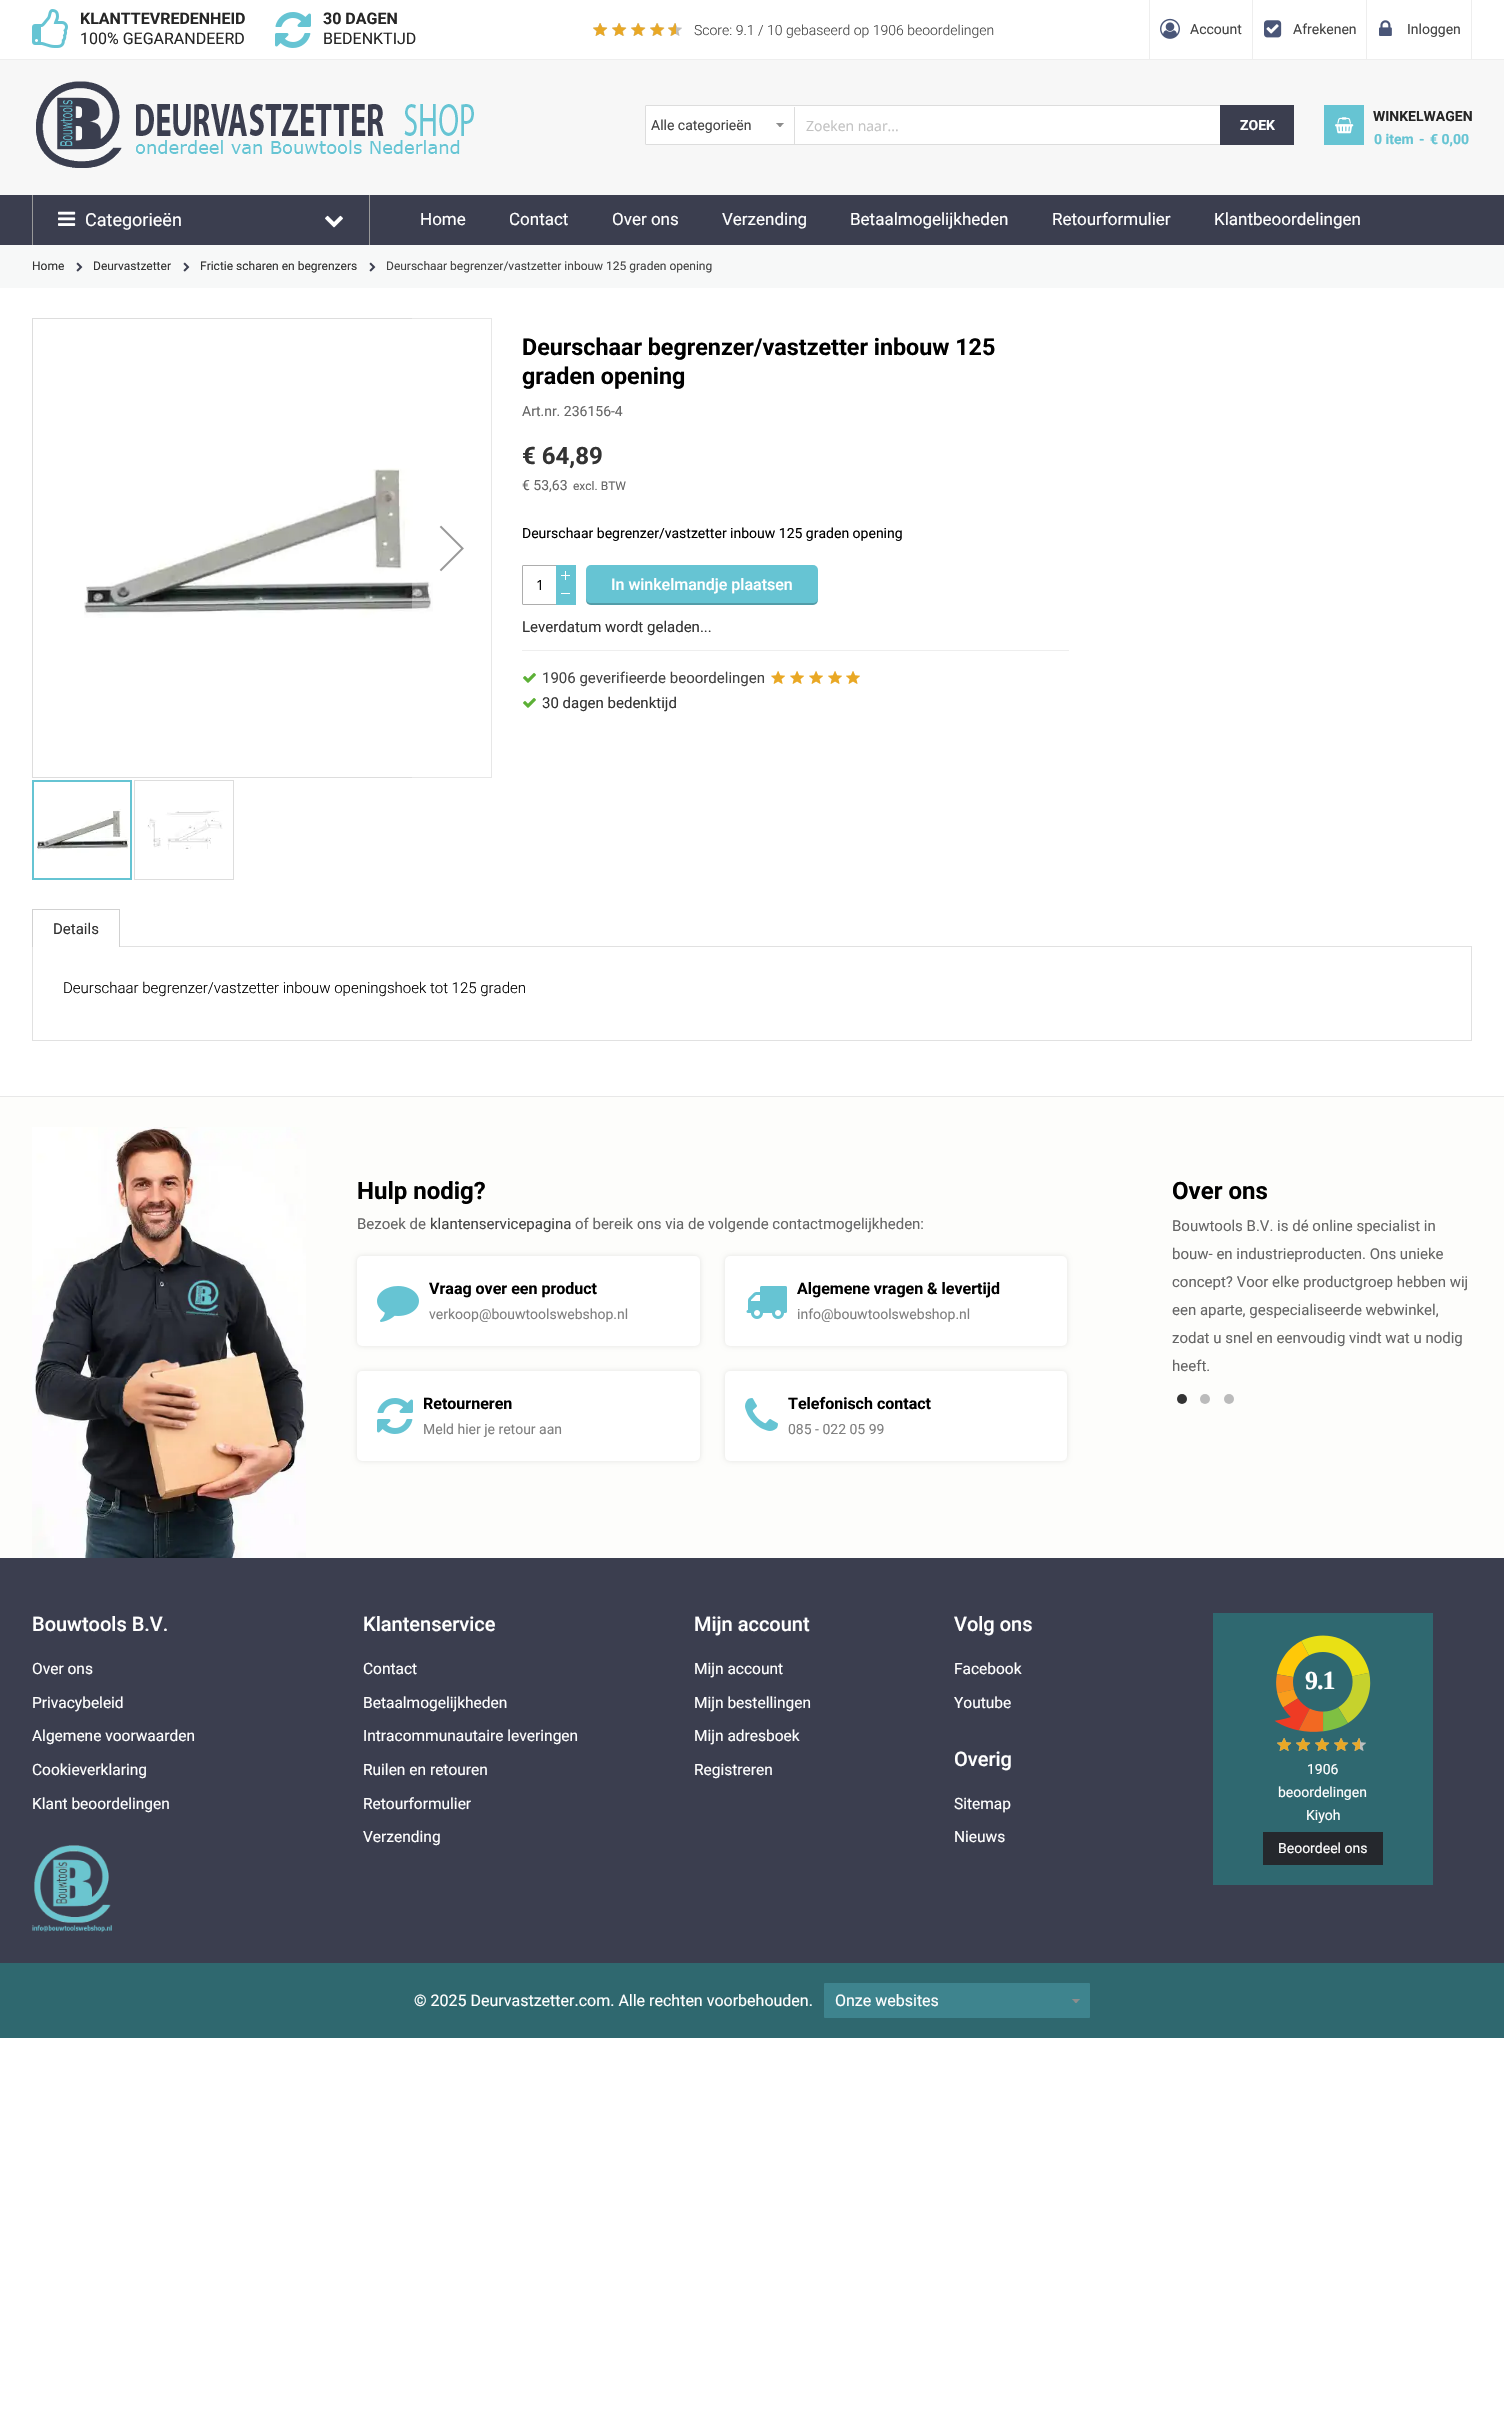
#include "include/core/SkBlurTypes.h"
#include "include/core/SkCanvas.h"
#include "include/core/SkData.h"
#include "include/core/SkFont.h"
#include "include/core/SkFontMgr.h"
#include "include/core/SkImage.h"
#include "include/core/SkMaskFilter.h"
#include "include/core/SkPaint.h"
#include "include/core/SkPathBuilder.h"
#include "include/core/SkTextBlob.h"
#include "include/effects/SkDashPathEffect.h"
#include "include/effects/SkGradientShader.h"
#include "include/utils/SkParsePath.h"

extern sk_sp<SkFontMgr> fontMgr;

void draw(SkCanvas* canvas) {
    SkPaint p;
    p.setAntiAlias(true);
    auto font = [&](const char* family, int weight, float size, bool italic = false) {
        SkFontStyle style(weight, SkFontStyle::kNormal_Width,
            italic ? SkFontStyle::kItalic_Slant : SkFontStyle::kUpright_Slant);
        SkFont result(fontMgr->matchFamilyStyle(family, style), size);
        result.setSubpixel(true);
        return result;
    };
    auto drawTracked = [&](const char* s, float x, float y, const SkFont& font, const SkPaint& ink, float letter, float word) {
        std::vector<SkGlyphID> glyphs(font.countText(s, strlen(s), SkTextEncoding::kUTF8));
        std::vector<float> xs(glyphs.size());
        font.textToGlyphs(s, strlen(s), SkTextEncoding::kUTF8, glyphs);
        font.getXPos(glyphs, xs, x);
        float extra = 0;
        for (size_t i = 0; i < glyphs.size(); i++) {
            xs[i] += extra;
            extra += letter + word * (glyphs[i] == font.unicharToGlyph(' '));
        }
        canvas->drawTextBlob(SkTextBlob::MakeFromPosHGlyphs(glyphs, xs, y, font), 0, 0, ink);
    };
    auto drawPhoto = [&](const char* path, float l, float t, float r, float b) {
        auto image = SkImages::DeferredFromEncodedData(SkData::MakeFromFileName(path));
        canvas->drawImageRect(image, SkRect::MakeLTRB(l, t, r, b), SkSamplingOptions());
    };
    canvas->clear(0xFFFFFFFF);
    p.setColor(0xFFEEEEEE);
    canvas->drawRect(SkRect::MakeLTRB(0, 59, 1504, 60), p);
    drawPhoto("media/1.png", 32, 9, 68, 48);
    auto font1 = font("Roboto", 700, 16);
    p.setColor(0xFF262626);
    canvas->drawString("KLANTTEVREDENHEID", 80, 24, font1, p);
    auto font2 = font("Roboto", 400, 16);
    canvas->drawString("100% GEGARANDEERD", 80, 44, font2, p);
    drawPhoto("media/2.png", 275, 12, 311, 48);
    canvas->drawString("30 DAGEN", 323, 24, font1, p);
    canvas->drawString("BEDENKTIJD", 323, 44, font2, p);
    drawPhoto("media/3.png", 593, 23, 682, 36);
    drawPhoto("media/4.png", 593, 23, 676, 36);
    auto font3 = font("Roboto", 300, 14);
    p.setColor(0xFF444444);
    canvas->drawString("Score: 9.1 / 10 gebaseerd op 1906 beoordelingen", 694, 35, font3, p);
    p.setColor(0xFFEEEEEE);
    canvas->drawRect(SkRect::MakeLTRB(1252, 0, 1253, 59), p);
    canvas->drawRect(SkRect::MakeLTRB(1149, 0, 1150, 59), p);
    drawPhoto("media/5.png", 1160, 18, 1180, 39);
    auto font4 = font("Roboto", 400, 14);
    p.setColor(0xFF444444);
    canvas->drawString("Account", 1190, 34, font4, p);
    p.setColor(0xFFEEEEEE);
    canvas->drawRect(SkRect::MakeLTRB(1366, 0, 1367, 59), p);
    drawPhoto("media/6.png", 1264, 20, 1282, 38);
    p.setColor(0xFF444444);
    canvas->drawString("Afrekenen", 1293, 34, font4, p);
    p.setColor(0xFFEEEEEE);
    canvas->drawRect(SkRect::MakeLTRB(1471, 0, 1472, 59), p);
    drawPhoto("media/7.png", 1379, 20, 1392, 36);
    p.setColor(0xFF444444);
    canvas->drawString("Inloggen", 1407, 34, font4, p);
    p.setColor(0xFFF7F7F7);
    canvas->drawRect(SkRect::MakeLTRB(0, 60, 1504, 195), p);
    drawPhoto("media/8.png", 36, 81, 474, 168);
    p.setColor(0xFFFFFFFF);
    canvas->drawRoundRect(SkRect::MakeLTRB(645.5f, 105.5f, 1220.5f, 144.5f), 0.5f, 0.5f, p);
    p.setStyle(SkPaint::kStroke_Style);
    p.setStrokeWidth(1);
    p.setColor(0xFFDDDDDD);
    canvas->drawRoundRect(SkRect::MakeLTRB(645.5f, 105.5f, 1220.5f, 144.5f), 0.5f, 0.5f, p);
    drawPhoto("media/9.png", 776, 123, 784, 127);
    p.setStyle(SkPaint::kFill_Style);
    canvas->drawRect(SkRect::MakeLTRB(794, 107, 795, 144), p);
    p.setColor(0xFF444444);
    canvas->drawString("Alle categorieën", 651, 130, font4, p);
    auto font5 = font("Open Sans", 400, 14);
    p.setColor(0xFFC2C2C2);
    canvas->drawString("Zoeken naar...", 806, 131, font5, p);
    p.setColor(0xFF3B3E4F);
    canvas->drawRect(SkRect::MakeLTRB(1220, 105, 1294, 145), p);
    auto font6 = font("Roboto", 700, 14);
    p.setColor(0xFFFFFFFF);
    canvas->drawString("ZOEK", 1240, 130, font6, p);
    p.setColor(0xFF66C4D3);
    canvas->drawRect(SkRect::MakeLTRB(1324, 105, 1364, 145), p);
    drawPhoto("media/10.png", 1335, 117, 1354, 134);
    p.setColor(0xFF262626);
    canvas->drawString("WINKELWAGEN", 1373, 121, font6, p);
    p.setColor(0xFF66C4D3);
    {
        const struct { const char* s; float x, y; } items[] = {
            {"0 item", 1374, 144},
            {"-", 1419, 144},
            {"€ 0,00", 1430, 144},
        };
        for (auto [s, x, y] : items) {
            canvas->drawString(s, x, y, font6, p);
        }
    }
    {
        const struct { float l, t, r, b; SkColor color; } items[] = {
            {0, 195, 1504, 245, 0xFF3B3E4F},
            {369, 195, 370, 245, 0xFF999999},
            {32, 195, 33, 245, 0xFF999999},
        };
        for (auto [l, t, r, b, color] : items) {
            p.setColor(color);
            canvas->drawRect(SkRect::MakeLTRB(l, t, r, b), p);
        }
    }
    drawPhoto("media/11.png", 58, 211, 76, 226);
    auto font7 = font("Roboto", 400, 18);
    p.setColor(0xFFFFFFFF);
    canvas->drawString("Categorieën", 85, 226, font7, p);
    drawPhoto("media/12.png", 325, 215, 343, 228);
    auto font8 = font("Roboto", 400, 17);
    {
        const struct { const char* s; float x, y; } items[] = {
            {"Home", 420, 225},
            {"Contact", 509, 225},
            {"Over ons", 612, 225},
            {"Verzending", 722, 225},
            {"Betaalmogelijkheden", 850, 225},
            {"Retourformulier", 1052, 225},
            {"Klantbeoordelingen", 1214, 225},
        };
        for (auto [s, x, y] : items) {
            canvas->drawString(s, x, y, font8, p);
        }
    }
    p.setColor(0xFFF7F8F8);
    canvas->drawRect(SkRect::MakeLTRB(0, 245, 1504, 288), p);
    auto font9 = font("Roboto", 400, 12);
    p.setColor(0xFF333333);
    canvas->drawString("Home", 32, 270, font9, p);
    drawPhoto("media/13.png", 76, 262, 83, 272);
    canvas->drawString("Deurvastzetter", 93, 270, font9, p);
    drawPhoto("media/13.png", 183, 262, 190, 272);
    canvas->drawString("Frictie scharen en begrenzers", 200, 270, font9, p);
    drawPhoto("media/13.png", 369, 262, 376, 272);
    p.setColor(0xFF444444);
    canvas->drawString("Deurschaar begrenzer/vastzetter inbouw 125 graden opening", 386, 270, font9, p);
    p.setStyle(SkPaint::kStroke_Style);
    p.setColor(0xFFDDDDDD);
    canvas->drawRect(SkRect::MakeLTRB(32.5f, 318.5f, 491.5f, 777.5f), p);
    drawPhoto("media/14.png", 84, 468, 433, 618);
    p.setStyle(SkPaint::kFill_Style);
    p.setColor(0x4DFFFFFF);
    canvas->drawRect(SkRect::MakeLTRB(412, 318, 492, 778), p);
    drawPhoto("media/15.png", 439, 525, 464, 572);
    drawPhoto("media/17.png", 37, 809, 129, 856);
    p.setStyle(SkPaint::kStroke_Style);
    p.setStrokeWidth(2);
    p.setColor(0xFF66C4D3);
    canvas->drawRect(SkRect::MakeLTRB(33, 781, 131, 879), p);
    p.setStrokeWidth(1);
    p.setColor(0xFFDDDDDD);
    canvas->drawRect(SkRect::MakeLTRB(134.5f, 780.5f, 233.5f, 879.5f), p);
    drawPhoto("media/16.png", 147, 810, 223, 850);
    auto font10 = font("Roboto", 700, 23.3f);
    p.setStyle(SkPaint::kFill_Style);
    p.setColor(0xFF000000);
    canvas->drawString("Deurschaar begrenzer/vastzetter inbouw 125", 522, 355, font10, p);
    canvas->drawString("graden opening", 522, 384, font10, p);
    p.setColor(0xFF666666);
    canvas->drawString("Art.nr. 236156-4", 522, 416, font4, p);
    auto font11 = font("Roboto", 700, 24);
    p.setColor(0xFF333333);
    canvas->drawString("€ 64,89", 522, 464, font11, p);
    p.setColor(0xFF666666);
    canvas->drawString("€ 53,63", 522, 490, font4, p);
    canvas->drawString("excl. BTW", 573, 490, font9, p);
    p.setColor(0xFF000000);
    canvas->drawString("Deurschaar begrenzer/vastzetter inbouw 125 graden opening", 522, 538, font4, p);
    p.setColor(0xFFEEEEEE);
    canvas->drawRect(SkRect::MakeLTRB(522, 650, 1069, 651), p);
    p.setStyle(SkPaint::kStroke_Style);
    p.setColor(0xFFADADAD);
    canvas->drawRoundRect(SkRect::MakeLTRB(522.5f, 565.5f, 556.5f, 604.5f), 0.5f, 0.5f, p);
    p.setStyle(SkPaint::kFill_Style);
    p.setColor(0xFF000000);
    canvas->drawString("1", 536, 590, font5, p);
    p.setColor(0xFF66C4D3);
    canvas->drawRect(SkRect::MakeLTRB(556, 565, 576, 605), p);
    drawPhoto("media/18.png", 561, 571, 570, 580);
    p.setColor(0xFFFFFFFF);
    canvas->drawRect(SkRect::MakeLTRB(561, 593, 570, 594), p);
    p.setColor(0xFF66C4D3);
    canvas->drawRoundRect(SkRect::MakeLTRB(586, 565, 818, 605), 5, 5, p);
    p.setColor(0x33000000);
    canvas->drawPath(SkPathBuilder().moveTo(586, 598).cubicTo(586, 601, 586, 604, 590, 605).lineTo(813, 605).cubicTo(817, 605, 818, 601, 818, 598).cubicTo(818, 601, 816, 603, 813, 603).lineTo(591, 603).cubicTo(588, 603, 586, 601, 586, 598).close().detach(), p);
    auto font12 = font("Roboto", 500, 16);
    p.setColor(0xFFFFFFFF);
    canvas->drawString("In winkelmandje plaatsen", 611, 590, font12, p);
    auto font13 = font("Roboto", 400, 15);
    p.setColor(0xFF333333);
    canvas->drawString("Leverdatum wordt geladen...", 522, 632, font13, p);
    drawPhoto("media/19.png", 523, 673, 536, 683);
    p.setColor(0xFF444444);
    canvas->drawString("1906 geverifieerde beoordelingen", 542, 683, font13, p);
    drawPhoto("media/20.png", 771, 671, 860, 684);
    drawPhoto("media/19.png", 523, 698, 536, 708);
    p.setColor(0xFF333333);
    canvas->drawString("30 dagen bedenktijd", 542, 708, font13, p);
    p.setStyle(SkPaint::kStroke_Style);
    p.setColor(0xFFE1E1E1);
    canvas->drawRect(SkRect::MakeLTRB(32.5f, 946.5f, 1471.5f, 1040.5f), p);
    p.setStyle(SkPaint::kFill_Style);
    {
        const struct { float l, t, r, b; SkColor color; } items[] = {
            {33, 946, 119, 947, 0xFFFFFFFF},
            {32, 909, 120, 910, 0xFFD1D1D1},
            {119, 909, 120, 947, 0xFFD1D1D1},
            {32, 909, 33, 947, 0xFFD1D1D1},
        };
        for (auto [l, t, r, b, color] : items) {
            p.setColor(color);
            canvas->drawRect(SkRect::MakeLTRB(l, t, r, b), p);
        }
    }
    p.setColor(0xFF333333);
    canvas->drawString("Details", 53, 934, font13, p);
    auto font14 = font("Roboto", 300, 15);
    p.setColor(0xFF000000);
    canvas->drawString("Deurschaar begrenzer/vastzetter inbouw openingshoek tot 125 graden", 63, 993, font14, p);
    p.setColor(0xFFFDFDFB);
    canvas->drawRect(SkRect::MakeLTRB(0, 1097, 1504, 1558), p);
    p.setColor(0xFFE8E8E8);
    canvas->drawRect(SkRect::MakeLTRB(0, 1096, 1504, 1097), p);
    drawPhoto("media/21.png", 32, 1127, 306, 1558);
    p.setColor(0xFF000000);
    canvas->drawString("Hulp nodig?", 357, 1199, font11, p);
    p.setColor(0xFF666666);
    canvas->drawString("Bezoek de", 357, 1229, font13, p);
    p.setColor(0xFF444444);
    canvas->drawString("klantenservicepagina", 430, 1229, font13, p);
    p.setColor(0xFF666666);
    canvas->drawString("of bereik ons via de volgende contactmogelijkheden:", 575, 1229, font13, p);
    p.setColor(0x1A000000);
    p.setMaskFilter(SkMaskFilter::MakeBlur(kNormal_SkBlurStyle, 2.5f));
    canvas->drawRoundRect(SkRect::MakeLTRB(357, 1256, 700, 1346), 5, 5, p);
    p.setMaskFilter(nullptr);
    p.setColor(0xFFFFFFFF);
    canvas->drawRoundRect(SkRect::MakeLTRB(357, 1256, 700, 1346), 5, 5, p);
    drawPhoto("media/22.png", 377, 1286, 419, 1322);
    p.setColor(0xFF000000);
    canvas->drawString("Vraag over een product", 429, 1294, font1, p);
    p.setColor(0xFF808080);
    canvas->drawString("verkoop@bouwtoolswebshop.nl", 429, 1319, font4, p);
    p.setColor(0x1A000000);
    p.setMaskFilter(SkMaskFilter::MakeBlur(kNormal_SkBlurStyle, 2.5f));
    canvas->drawRoundRect(SkRect::MakeLTRB(725, 1256, 1067, 1346), 5, 5, p);
    p.setMaskFilter(nullptr);
    p.setColor(0xFFFFFFFF);
    canvas->drawRoundRect(SkRect::MakeLTRB(725, 1256, 1067, 1346), 5, 5, p);
    drawPhoto("media/23.png", 746, 1286, 787, 1319);
    p.setColor(0xFF000000);
    canvas->drawString("Algemene vragen & levertijd", 797, 1294, font1, p);
    p.setColor(0xFF808080);
    canvas->drawString("info@bouwtoolswebshop.nl", 797, 1319, font4, p);
    p.setColor(0x1A000000);
    p.setMaskFilter(SkMaskFilter::MakeBlur(kNormal_SkBlurStyle, 2.5f));
    canvas->drawRoundRect(SkRect::MakeLTRB(357, 1371, 700, 1461), 5, 5, p);
    p.setMaskFilter(nullptr);
    p.setColor(0xFFFFFFFF);
    canvas->drawRoundRect(SkRect::MakeLTRB(357, 1371, 700, 1461), 5, 5, p);
    drawPhoto("media/2.png", 377, 1398, 413, 1434);
    p.setColor(0xFF000000);
    canvas->drawString("Retourneren", 423, 1409, font1, p);
    p.setColor(0xFF808080);
    canvas->drawString("Meld hier je retour aan", 423, 1434, font4, p);
    p.setColor(0x1A000000);
    p.setMaskFilter(SkMaskFilter::MakeBlur(kNormal_SkBlurStyle, 2.5f));
    canvas->drawRoundRect(SkRect::MakeLTRB(725, 1371, 1067, 1461), 5, 5, p);
    p.setMaskFilter(nullptr);
    p.setColor(0xFFFFFFFF);
    canvas->drawRoundRect(SkRect::MakeLTRB(725, 1371, 1067, 1461), 5, 5, p);
    drawPhoto("media/24.png", 745, 1398, 778, 1431);
    p.setColor(0xFF000000);
    canvas->drawString("Telefonisch contact", 788, 1409, font1, p);
    p.setColor(0xFF808080);
    canvas->drawString("085 - 022 05 99", 788, 1434, font4, p);
    p.setColor(0xFF000000);
    canvas->drawString("Over ons", 1172, 1199, font11, p);
    p.setColor(0xFF666666);
    {
        const struct { const char* s; float x, y; } items[] = {
            {"Bouwtools B.V. is dé online specialist in", 1172, 1231},
            {"bouw- en industrieproducten. Ons unieke", 1172, 1259},
            {"concept? Voor elke productgroep hebben wij", 1172, 1287},
            {"een aparte, gespecialiseerde webwinkel,", 1172, 1315},
            {"zodat u snel en eenvoudig vindt wat u nodig", 1172, 1343},
            {"heeft.", 1172, 1371},
        };
        for (auto [s, x, y] : items) {
            canvas->drawString(s, x, y, font13, p);
        }
    }
    p.setColor(0xFF333333);
    canvas->drawCircle(1182, 1399, 5, p);
    p.setColor(0xFFBBBBBB);
    canvas->drawCircle(1205, 1399, 5, p);
    canvas->drawCircle(1229, 1399, 5, p);
    p.setColor(0xFF3B3E4F);
    canvas->drawRect(SkRect::MakeLTRB(0, 1558, 1504, 1963), p);
    auto font15 = font("Roboto", 500, 20);
    p.setColor(0xFFFFFFFF);
    canvas->drawString("Bouwtools B.V.", 32, 1631, font15, p);
    auto font16 = font("Roboto", 400, 15.5f);
    {
        const struct { const char* s; float x, y; } items[] = {
            {"Over ons", 32, 1674},
            {"Privacybeleid", 32, 1708},
            {"Algemene voorwaarden", 32, 1741},
            {"Cookieverklaring", 32, 1775},
            {"Klant beoordelingen", 32, 1809},
        };
        for (auto [s, x, y] : items) {
            canvas->drawString(s, x, y, font16, p);
        }
    }
    drawPhoto("media/25.png", 32, 1845, 112, 1933);
    canvas->drawString("Klantenservice", 363, 1631, font15, p);
    {
        const struct { const char* s; float x, y; } items[] = {
            {"Contact", 363, 1674},
            {"Betaalmogelijkheden", 363, 1708},
            {"Intracommunautaire leveringen", 363, 1741},
            {"Ruilen en retouren", 363, 1775},
            {"Retourformulier", 363, 1809},
            {"Verzending", 363, 1842},
        };
        for (auto [s, x, y] : items) {
            canvas->drawString(s, x, y, font16, p);
        }
    }
    canvas->drawString("Mijn account", 694, 1631, font15, p);
    {
        const struct { const char* s; float x, y; } items[] = {
            {"Mijn account", 694, 1674},
            {"Mijn bestellingen", 694, 1708},
            {"Mijn adresboek", 694, 1741},
            {"Registreren", 694, 1775},
        };
        for (auto [s, x, y] : items) {
            canvas->drawString(s, x, y, font16, p);
        }
    }
    canvas->drawString("Volg ons", 954, 1631, font15, p);
    canvas->drawString("Facebook", 954, 1674, font16, p);
    canvas->drawString("Youtube", 954, 1708, font16, p);
    canvas->drawString("Overig", 954, 1766, font15, p);
    canvas->drawString("Sitemap", 954, 1809, font16, p);
    canvas->drawString("Nieuws", 954, 1842, font16, p);
    p.setColor(0xFF2F6870);
    canvas->drawRect(SkRect::MakeLTRB(1213, 1613, 1433, 1885), p);
    drawPhoto("media/26.png", 1274, 1635, 1371, 1732);
    auto font17 = font("Liberation Serif", 700, 26);
    p.setColor(0xFFFFFFFF);
    drawTracked("9.1", 1305, 1689, font17, p, -1, 0);
    drawPhoto("media/27.png", 1277, 1738, 1366, 1751);
    drawPhoto("media/28.png", 1277, 1738, 1360, 1751);
    {
        const struct { const char* s; float x, y; } items[] = {
            {"1906", 1307, 1774},
            {"beoordelingen", 1278, 1797},
            {"Kiyoh", 1306, 1820},
        };
        for (auto [s, x, y] : items) {
            canvas->drawString(s, x, y, font4, p);
        }
    }
    p.setColor(0xFF25282D);
    canvas->drawRect(SkRect::MakeLTRB(1263, 1832, 1383, 1865), p);
    p.setColor(0xFFFFFFFF);
    canvas->drawString("Beoordeel ons", 1278, 1853, font4, p);
    p.setColor(0xFF2F686F);
    canvas->drawRect(SkRect::MakeLTRB(0, 1963, 1504, 2038), p);
    p.setColor(0xFFFFFFFF);
    canvas->drawString("© 2025 Deurvastzetter.com. Alle rechten voorbehouden.", 414, 2006, font2, p);
    p.setColor(0xFF3E848E);
    canvas->drawRoundRect(SkRect::MakeLTRB(824, 1983, 1090, 2018), 1, 1, p);
    drawPhoto("media/29.png", 1072, 1999, 1080, 2003);
    p.setColor(0xFFFFFFFF);
    canvas->drawString("Onze websites", 835, 2006, font2, p);
}
